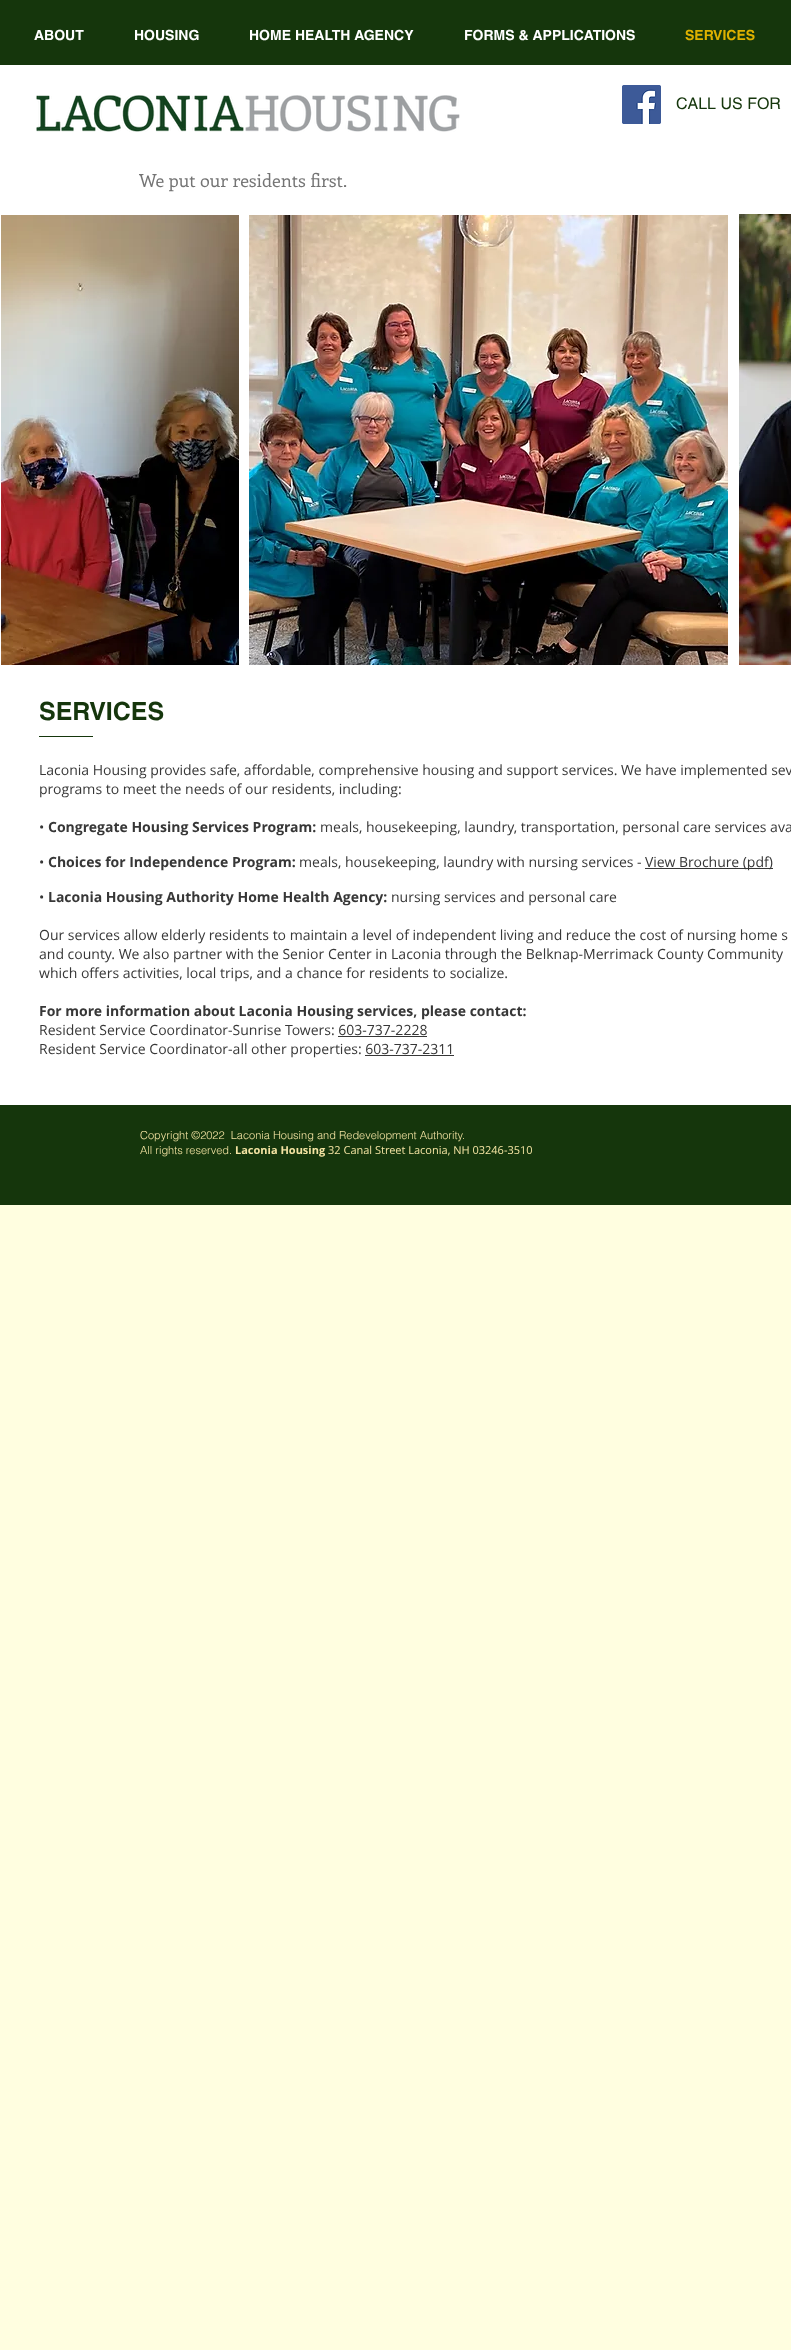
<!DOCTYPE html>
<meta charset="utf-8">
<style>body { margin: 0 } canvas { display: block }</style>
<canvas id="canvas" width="791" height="2350"></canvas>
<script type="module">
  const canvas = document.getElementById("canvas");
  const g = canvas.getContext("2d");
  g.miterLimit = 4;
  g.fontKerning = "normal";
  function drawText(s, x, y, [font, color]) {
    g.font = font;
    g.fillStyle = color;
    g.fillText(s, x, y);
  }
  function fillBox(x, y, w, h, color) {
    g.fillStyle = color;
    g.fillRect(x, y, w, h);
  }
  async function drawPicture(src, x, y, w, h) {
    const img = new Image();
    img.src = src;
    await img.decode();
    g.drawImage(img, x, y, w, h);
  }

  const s1 = ["bold 14px helvetica", "#FFFFFF"];
  const s2 = ["bold 14px helvetica", "#DEB100"];
  const s3 = ["16px helvetica", "#15360C"];
  const s4 = ["18px Enriqueta", "#747474"];
  const s5 = ["bold 25px helvetica", "#15360C"];
  const s6 = ["14px Open Sans", "#373737"];
  const s7 = ["bold 14px Open Sans", "#373737"];
  const s8 = ["300 11px helvetica", "#F4E4A3"];
  const s9 = ["bold 11px Open Sans", "#F4E4A3"];
  const s10 = ["11px Open Sans", "#F4E4A3"];

  fillBox(0, 0, 791, 2350, "#FFFEE0");
  fillBox(0, 0, 791, 65, "#15360C");
  drawText("ABOUT", 34, 40, s1);
  drawText("HOUSING", 134, 40, s1);
  drawText("HOME HEALTH AGENCY", 249, 40, s1);
  drawText("FORMS & APPLICATIONS", 464, 40, s1);
  drawText("SERVICES", 685, 40, s2);
  fillBox(0, 65, 791, 1040, "#FFFFFF");
  await drawPicture("pic1.png", 36, 95, 424, 37);
  await drawPicture("pic2.png", 622, 85, 39, 39);
  drawText("CALL US FOR", 676, 109, s3);
  drawText("We put our residents first.", 139, 187, s4);
  await drawPicture("pic3.png", 1, 215, 238, 450);
  await drawPicture("pic4.png", 249, 215, 479, 450);
  await drawPicture("pic5.png", 739, 214, 52, 451);
  drawText("SERVICES", 39, 720, s5);
  fillBox(39, 736, 54, 1, "#15360C");
  drawText("Laconia Housing provides safe, affordable, comprehensive housing and support services. We have implemented sev", 39, 775, s6);
  drawText("programs to meet the needs of our residents, including:", 39, 794, s6);
  drawText("•", 39, 832, s6);
  drawText("Congregate Housing Services Program:", 48, 832, s7);
  drawText("meals, housekeeping, laundry, transportation, personal care services ava", 320, 832, s6);
  drawText("•", 39, 867, s6);
  drawText("Choices for Independence Program:", 48, 867, s7);
  drawText("meals, housekeeping, laundry with nursing services -", 299, 867, s6);
  fillBox(645, 868, 128, 1, "#373737");
  drawText("View Brochure (pdf)", 645, 867, s6);
  drawText("•", 39, 902, s6);
  drawText("Laconia Housing Authority Home Health Agency:", 48, 902, s7);
  drawText("nursing services and personal care", 391, 902, s6);
  drawText("Our services allow elderly residents to maintain a level of independent living and reduce the cost of nursing home s", 39, 940, s6);
  drawText("and county. We also partner with the Senior Center in Laconia through the Belknap-Merrimack County Community", 39, 959, s6);
  drawText("which offers activities, local trips, and a chance for residents to socialize.", 39, 978, s6);
  drawText("For more information about Laconia Housing services, please contact:", 39, 1016, s7);
  drawText("Resident Service Coordinator-Sunrise Towers: 603-737-2228", 39, 1035, s6);
  fillBox(338, 1036, 89, 1, "#373737");
  drawText("Resident Service Coordinator-all other properties: 603-737-2311", 39, 1054, s6);
  fillBox(365, 1055, 89, 1, "#373737");
  fillBox(0, 1105, 791, 100, "#15360C");
  drawText("Copyright ©2022  Laconia Housing and Redevelopment Authority.", 140, 1139, s8);
  drawText("All rights reserved.", 140, 1154, s8);
  drawText("Laconia Housing", 235, 1154, s9);
  drawText("32 Canal Street Laconia, NH 03246-3510", 328, 1154, s10);
</script>
